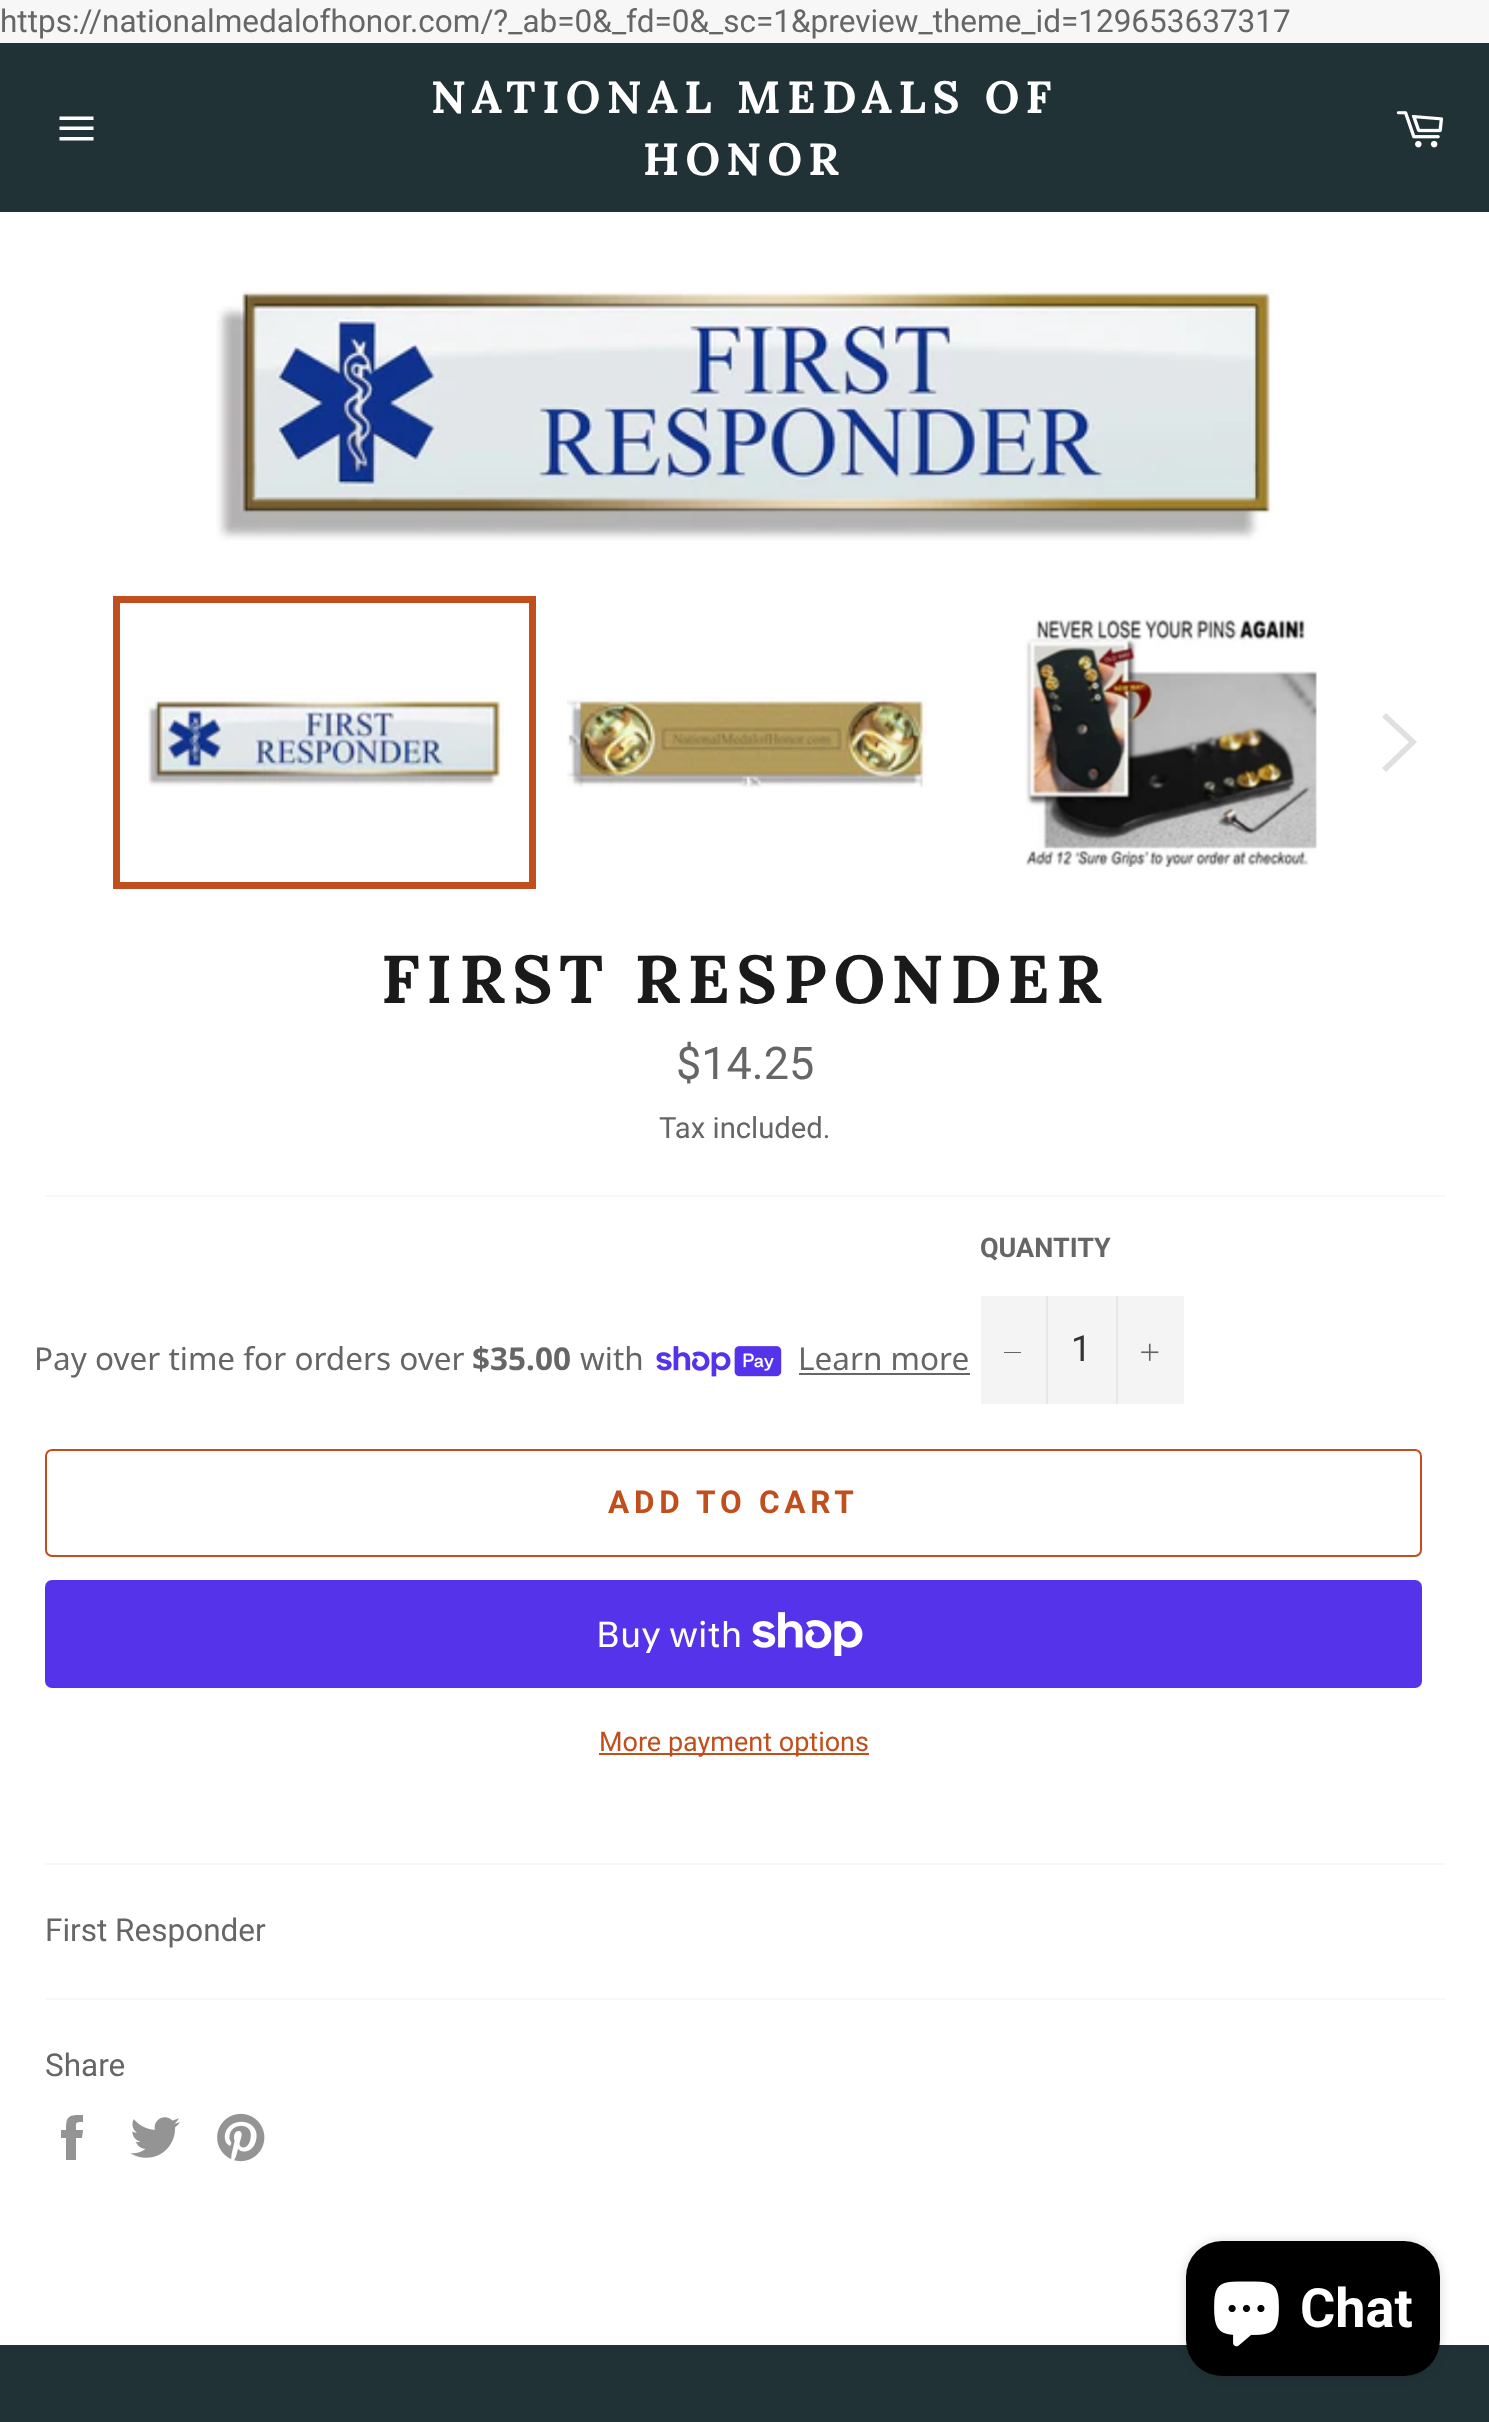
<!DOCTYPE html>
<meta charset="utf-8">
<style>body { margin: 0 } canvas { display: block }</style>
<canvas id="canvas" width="1489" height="2422"></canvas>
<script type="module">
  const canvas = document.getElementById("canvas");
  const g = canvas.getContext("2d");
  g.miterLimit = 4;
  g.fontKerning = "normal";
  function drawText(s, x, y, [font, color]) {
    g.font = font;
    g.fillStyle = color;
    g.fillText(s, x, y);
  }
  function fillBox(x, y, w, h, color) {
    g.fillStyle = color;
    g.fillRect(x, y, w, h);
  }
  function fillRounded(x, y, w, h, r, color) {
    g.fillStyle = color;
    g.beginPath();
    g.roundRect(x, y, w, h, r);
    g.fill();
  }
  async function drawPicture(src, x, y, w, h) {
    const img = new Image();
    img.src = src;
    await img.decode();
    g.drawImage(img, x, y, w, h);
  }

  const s1 = ["31.5px Roboto", "#666666"];
  const s2 = ["bold 45px Lora", "#FFFFFF"];
  const s3 = ["bold 67.5px Lora", "#1A1A1A"];
  const s4 = ["45px Roboto", "#666666"];
  const s5 = ["29.25px Roboto", "#666666"];
  const s6 = ["31.5px Noto Sans", "#666666"];
  const s7 = ["bold 31.5px Noto Sans", "#666666"];
  const s8 = ["bold 27px Roboto", "#666666"];
  const s9 = ["36px Roboto", "#333333"];
  const s10 = ["bold 31.5px Roboto", "#C04F1D"];
  const s11 = ["36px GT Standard", "#FFFFFF"];
  const s12 = ["27px Roboto", "#C04F1D"];
  const s13 = ["bold 54px Roboto", "#FFFFFF"];

  fillBox(0, 0, 1489, 2422, "#F7F7F7");
  drawText("https://nationalmedalofhonor.com/?_ab=0&_fd=0&_sc=1&preview_theme_id=129653637317", 0, 32, s1);
  fillBox(0, 43, 1489, 169, "#213236");
  g.fillStyle = "#FFFFFF";
  g.beginPath();
  g.moveTo(59.5, 126.5);
  g.lineTo(93.5, 126.5);
  g.lineTo(93.5, 130);
  g.lineTo(59.5, 130);
  g.closePath();
  g.moveTo(59.5, 116.5);
  g.lineTo(93.5, 116.5);
  g.lineTo(93.5, 120);
  g.lineTo(59.5, 120);
  g.closePath();
  g.moveTo(59.5, 137);
  g.lineTo(93.5, 137);
  g.lineTo(93.5, 140.5);
  g.lineTo(59.5, 140.5);
  g.closePath();
  g.fill();
  g.letterSpacing = "6.75px";
  drawText("NATIONAL MEDALS OF", 431, 113, s2);
  drawText("HONOR", 643, 175, s2);
  await drawPicture("pic1.png", 1396, 111, 48, 37);
  fillBox(0, 212, 1489, 2133, "#FFFFFF");
  await drawPicture("pic2.png", 216, 290, 1058, 251);
  await drawPicture("pic3.png", 144, 697, 360, 90);
  g.strokeStyle = "#C04F1D";
  g.lineWidth = 7;
  g.strokeRect(116.5, 599.5, 416, 286);
  await drawPicture("pic4.png", 567, 697, 360, 91);
  await drawPicture("pic5.png", 1024, 619, 293, 248);
  g.fillStyle = "#E0E0E0";
  g.beginPath();
  g.moveTo(1382, 717);
  g.lineTo(1386, 713);
  g.lineTo(1417, 742);
  g.lineTo(1386, 772);
  g.lineTo(1382, 768);
  g.lineTo(1409, 742);
  g.closePath();
  g.fill();
  drawText("FIRST RESPONDER", 381, 1003, s3);
  g.letterSpacing = "0px";
  drawText("$14.25", 676, 1079, s4);
  drawText("Tax included.", 659, 1138, s5);
  fillBox(45, 1195, 1400, 2, "#F7F7F7");
  drawText("Pay over time for orders over", 34, 1370, s6);
  drawText("$35.00", 472, 1370, s7);
  drawText("with", 580, 1370, s6);
  await drawPicture("pic6.png", 656, 1346, 126, 31);
  drawText("Learn more", 798, 1370, s6);
  fillBox(799, 1373, 171, 2, "#666666");
  drawText("QUANTITY", 980, 1257, s8);
  fillBox(981, 1296, 203, 108, "#F4F4F4");
  fillBox(1046, 1296, 2, 108, "#E7E7E7");
  fillBox(1004, 1352, 17, 1, "#666666");
  drawText("1", 1071, 1361, s9);
  fillBox(1116, 1296, 2, 108, "#E7E7E7");
  await drawPicture("pic7.png", 1141, 1343, 18, 18);
  g.beginPath();
  g.roundRect(46, 1450, 1375, 106, 6);
  g.lineWidth = 2;
  g.stroke();
  g.letterSpacing = "4.75px";
  drawText("ADD TO CART", 608, 1513, s10);
  fillRounded(45, 1580, 1377, 108, 7, "#5433EB");
  g.letterSpacing = "0px";
  drawText("Buy with", 596, 1647, s11);
  await drawPicture("pic8.png", 752, 1612, 111, 44);
  fillBox(599, 1753, 270, 2, "#C04F1D");
  drawText("More payment options", 599, 1751, s12);
  fillBox(45, 1863, 1400, 2, "#F7F7F7");
  drawText("First Responder", 45, 1941, s1);
  fillBox(45, 1998, 1400, 2, "#F7F7F7");
  drawText("Share", 45, 2076, s1);
  g.fillStyle = "#949494";
  g.beginPath();
  g.moveTo(76, 2130);
  g.bezierCurveTo(76, 2122, 75, 2122, 83, 2122);
  g.lineTo(83, 2115);
  g.bezierCurveTo(69, 2115, 66, 2115, 66, 2130);
  g.lineTo(61, 2130);
  g.lineTo(61, 2138);
  g.lineTo(66, 2138);
  g.lineTo(66, 2160);
  g.lineTo(76, 2160);
  g.lineTo(76, 2138);
  g.lineTo(82, 2138);
  g.lineTo(83, 2130);
  g.closePath();
  g.fill();
  await drawPicture("pic9.png", 130, 2117, 50, 41);
  await drawPicture("pic10.png", 217, 2113, 48, 49);
  fillBox(0, 2345, 1489, 77, "#213236");
  g.fillStyle = "rgba(0, 0, 0, 0.15)";
  g.filter = "blur(5.5px)";
  g.beginPath();
  g.roundRect(1186, 2241, 254, 135, 36);
  g.fill();
  g.filter = "none";
  fillRounded(1186, 2241, 254, 135, 36, "#000000");
  await drawPicture("pic11.png", 1214, 2281, 65, 66);
  drawText("Chat", 1300, 2327, s13);
</script>
